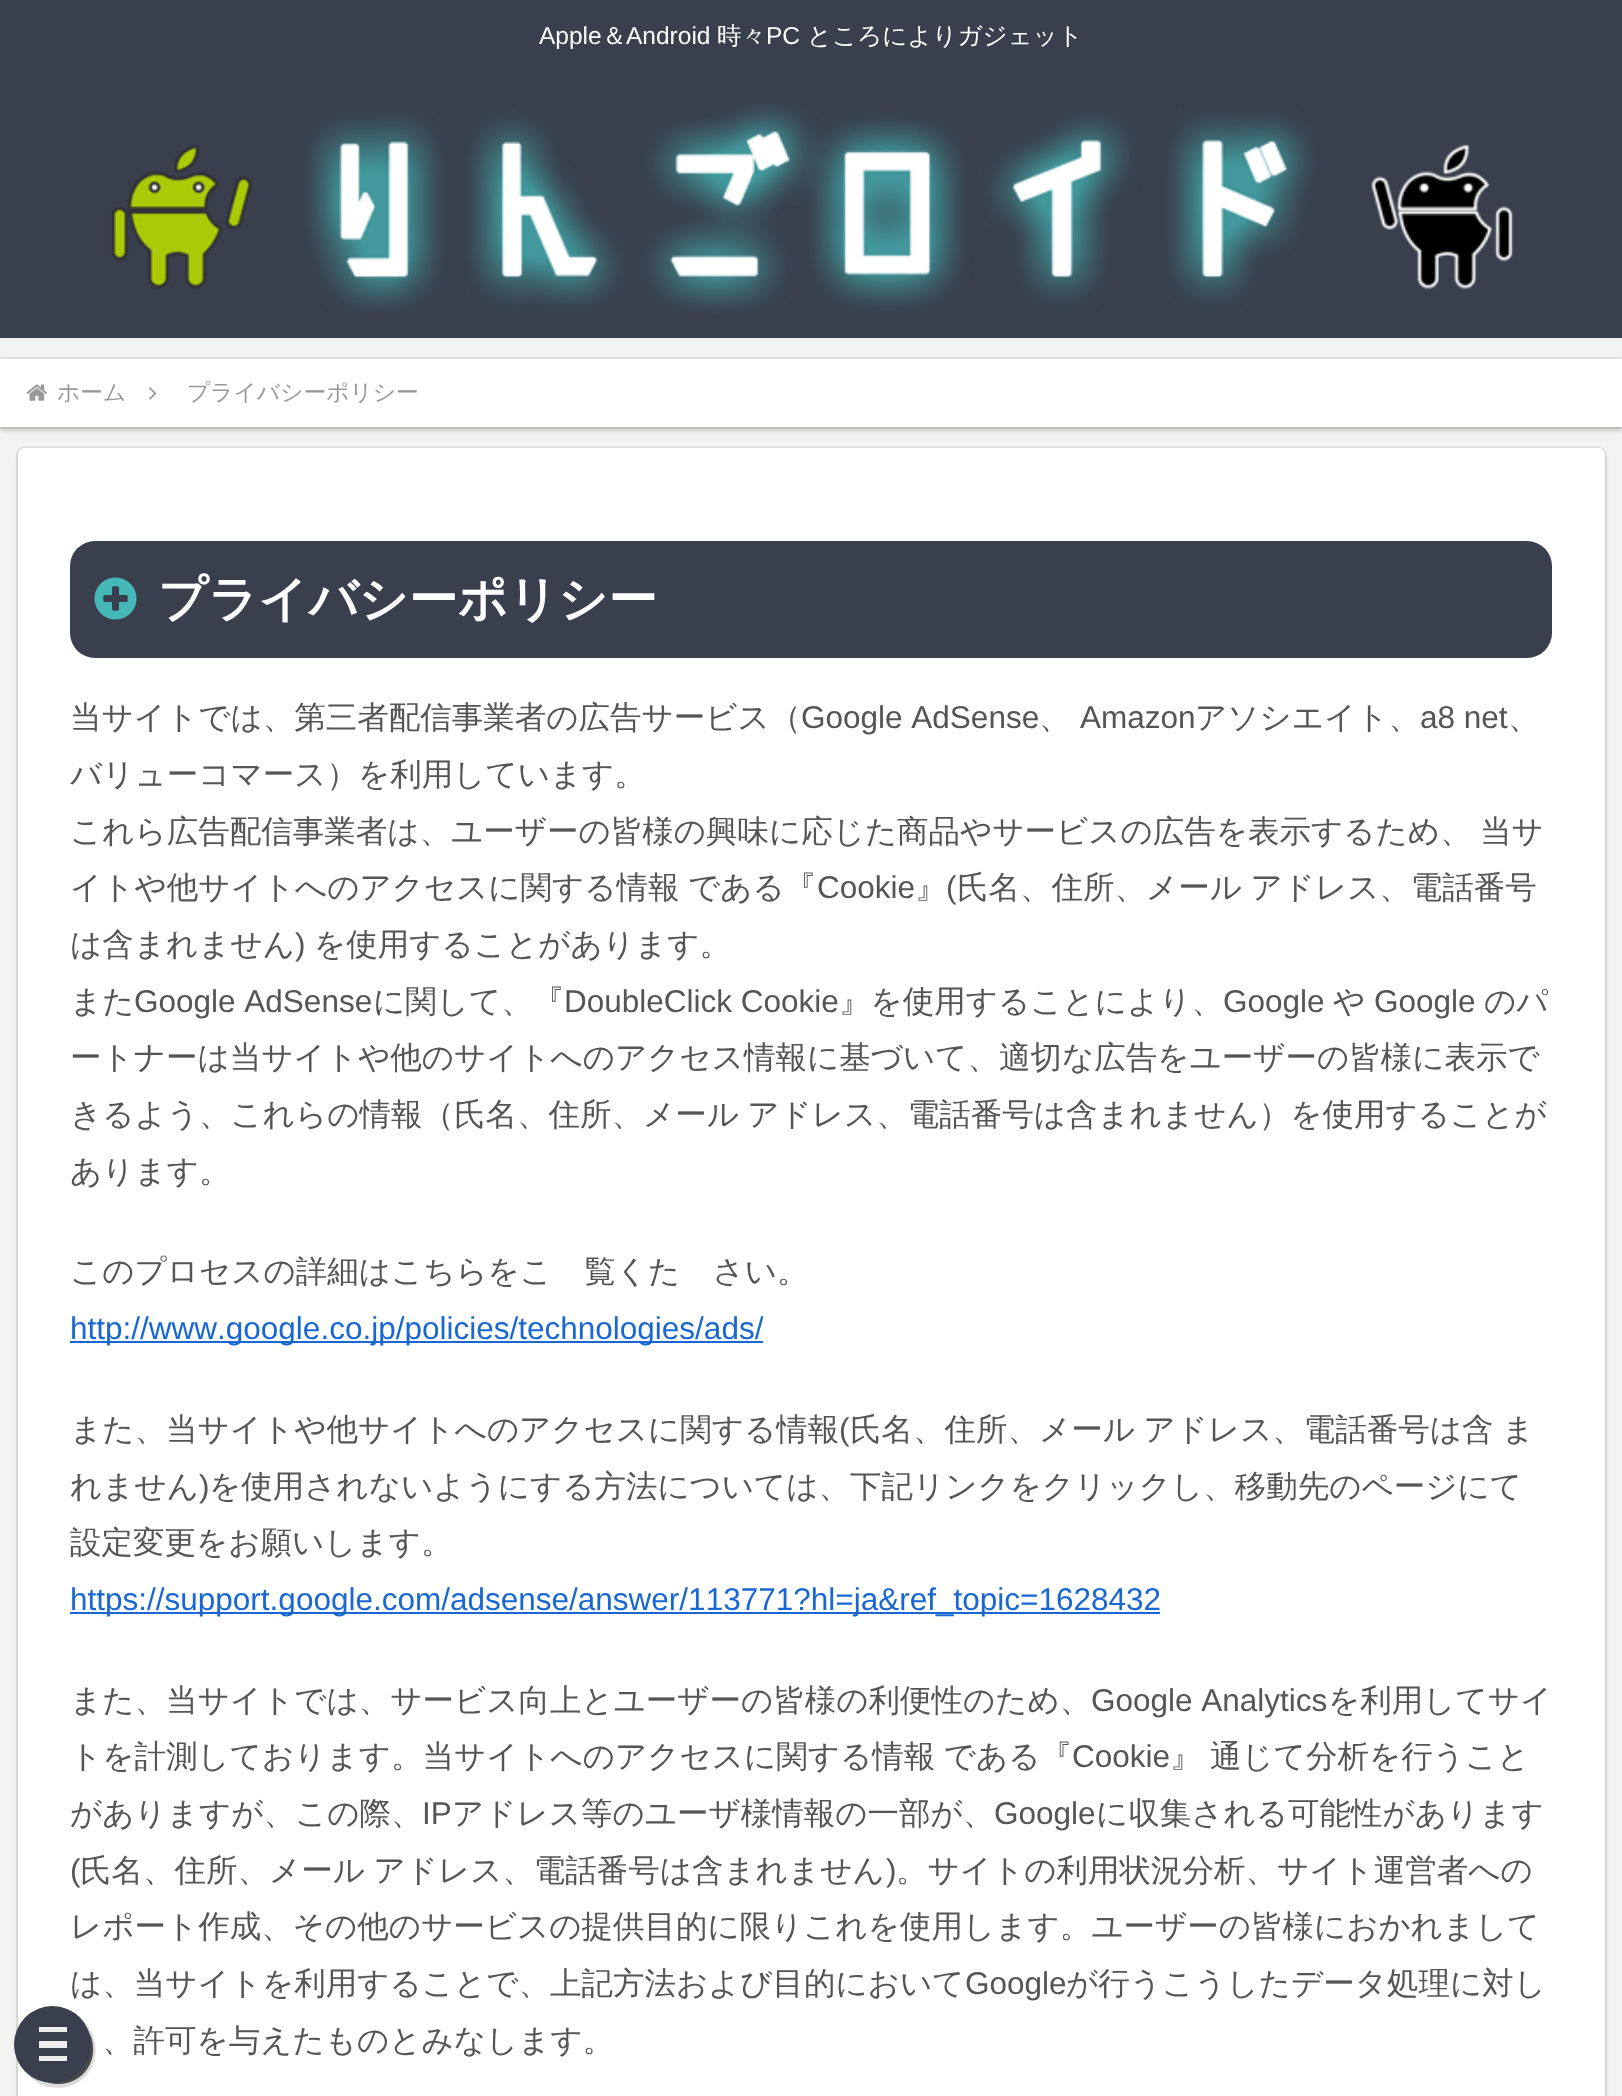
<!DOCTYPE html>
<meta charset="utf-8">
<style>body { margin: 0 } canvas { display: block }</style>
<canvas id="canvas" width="1622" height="2096"></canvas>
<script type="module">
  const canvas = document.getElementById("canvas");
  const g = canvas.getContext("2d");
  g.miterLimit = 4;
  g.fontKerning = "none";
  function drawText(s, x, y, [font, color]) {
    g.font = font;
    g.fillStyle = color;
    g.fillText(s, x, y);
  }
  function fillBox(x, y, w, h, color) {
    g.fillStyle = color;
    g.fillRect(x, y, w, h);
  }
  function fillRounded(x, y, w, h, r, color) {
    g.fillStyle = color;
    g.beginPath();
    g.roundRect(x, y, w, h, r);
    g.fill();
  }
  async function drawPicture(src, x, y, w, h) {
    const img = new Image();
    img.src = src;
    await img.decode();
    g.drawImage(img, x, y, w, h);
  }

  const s1 = ["24.5px Liberation Sans", "#FFFFFF"];
  const s2 = ["500 24.5px WenQuanYi Zen Hei", "#FFFFFF"];
  const s3 = ["500 22.75px WenQuanYi Zen Hei", "#999999"];
  const s4 = ["bold 49px WenQuanYi Zen Hei", "#FFFFFF"];
  const s5 = ["500 31.5px WenQuanYi Zen Hei", "#555555"];
  const s6 = ["31.5px Liberation Sans", "#555555"];
  const s7 = ["31.5px Liberation Sans", "#1967D2"];

  fillBox(0, 0, 1622, 2096, "#F3F3F2");
  fillBox(0, 0, 1622, 338, "#393F4C");
  drawText("Apple", 539, 44, s1);
  drawText("＆", 602, 44, s2);
  drawText("Android", 626, 44, s1);
  drawText("時々", 717, 44, s2);
  drawText("PC", 766, 44, s1);
  drawText("ところによりガジェット", 807, 44, s2);
  await drawPicture("pic1.png", 111, 99, 1402, 215);
  g.strokeStyle = "#E0E0DF";
  g.lineWidth = 2;
  g.strokeRect(-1, 358, 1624, 70);
  g.fillStyle = "rgba(0, 0, 0, 0.16)";
  g.filter = "blur(2px)";
  g.beginPath();
  g.rect(0, 362, 1622, 69);
  g.fill();
  g.filter = "none";
  fillBox(0, 359, 1622, 68, "#FFFFFF");
  await drawPicture("pic2.png", 26, 384, 21, 17);
  drawText("ホーム", 57, 400, s3);
  await drawPicture("pic3.png", 149, 387, 8, 13);
  drawText("プライバシーポリシー", 187, 400, s3);
  g.beginPath();
  g.roundRect(17, 447, 1589, 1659, 8);
  g.stroke();
  g.fillStyle = "rgba(0, 0, 0, 0.16)";
  g.filter = "blur(2px)";
  g.beginPath();
  g.roundRect(18, 452, 1587, 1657, 7);
  g.fill();
  g.filter = "none";
  fillRounded(18, 448, 1587, 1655, 7, "#FFFFFF");
  g.fillStyle = "rgba(0, 0, 0, 0.14)";
  g.beginPath();
  g.moveTo(32, 2072);
  g.bezierCurveTo(45, 2087, 69, 2088, 83, 2074);
  g.bezierCurveTo(98, 2059, 96, 2033, 79, 2021);
  g.bezierCurveTo(106, 2052, 65, 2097, 32, 2072);
  g.closePath();
  g.fill();
  g.beginPath();
  g.moveTo(32, 2072);
  g.bezierCurveTo(45, 2087, 69, 2088, 83, 2074);
  g.bezierCurveTo(98, 2059, 96, 2033, 79, 2021);
  g.bezierCurveTo(106, 2052, 65, 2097, 32, 2072);
  g.closePath();
  g.fill();
  g.beginPath();
  g.moveTo(32, 2072);
  g.bezierCurveTo(45, 2087, 69, 2088, 83, 2074);
  g.bezierCurveTo(98, 2059, 96, 2033, 79, 2021);
  g.bezierCurveTo(106, 2052, 65, 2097, 32, 2072);
  g.closePath();
  g.fill();
  g.beginPath();
  g.moveTo(32, 2072);
  g.bezierCurveTo(45, 2087, 69, 2088, 83, 2074);
  g.bezierCurveTo(98, 2059, 96, 2033, 79, 2021);
  g.bezierCurveTo(106, 2052, 65, 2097, 32, 2072);
  g.closePath();
  g.fill();
  g.beginPath();
  g.moveTo(32, 2072);
  g.bezierCurveTo(45, 2087, 69, 2088, 83, 2074);
  g.bezierCurveTo(98, 2059, 96, 2033, 79, 2021);
  g.bezierCurveTo(106, 2052, 65, 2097, 32, 2072);
  g.closePath();
  g.fill();
  g.beginPath();
  g.moveTo(32, 2072);
  g.bezierCurveTo(45, 2087, 69, 2088, 83, 2074);
  g.bezierCurveTo(98, 2059, 96, 2033, 79, 2021);
  g.bezierCurveTo(106, 2052, 65, 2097, 32, 2072);
  g.closePath();
  g.fill();
  g.beginPath();
  g.moveTo(32, 2072);
  g.bezierCurveTo(45, 2087, 69, 2088, 83, 2074);
  g.bezierCurveTo(98, 2059, 96, 2033, 79, 2021);
  g.bezierCurveTo(106, 2052, 65, 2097, 32, 2072);
  g.closePath();
  g.fill();
  g.beginPath();
  g.moveTo(27, 2073);
  g.bezierCurveTo(40, 2091, 68, 2093, 85, 2077);
  g.bezierCurveTo(100, 2061, 99, 2035, 83, 2021);
  g.bezierCurveTo(95, 2036, 93, 2058, 80, 2071);
  g.bezierCurveTo(65, 2086, 42, 2086, 27, 2073);
  g.closePath();
  g.fill();
  g.fillStyle = "#393F4C";
  g.beginPath();
  g.arc(52.5, 2044.5, 38.5, 0, Math.PI * 2);
  g.fill();
  fillBox(39, 2027, 28, 5, "#EEEEEE");
  fillBox(39, 2041, 28, 7, "#EEEEEE");
  fillBox(39, 2056, 28, 5, "#EEEEEE");
  fillRounded(70, 541, 1482, 117, 25, "#393F4C");
  await drawPicture("pic4.png", 94, 577, 43, 43);
  drawText("プライバシーポリシー", 158, 616, s4);
  drawText("当サイトでは、第三者配信事業者の広告サービス（", 70, 728, s5);
  drawText("Google AdSense", 801, 728, s6);
  drawText("、", 1039, 728, s5);
  drawText("Amazon", 1080, 728, s6);
  drawText("アソシエイト、", 1195, 728, s5);
  drawText("a8 net", 1420, 728, s6);
  drawText("、", 1508, 728, s5);
  drawText("バリューコマース）を利用しています。", 70, 785, s5);
  g.wordSpacing = "-1px";
  drawText("これら広告配信事業者は、ユーザーの皆様の興味に応じた商品やサービスの広告を表示するため、 当サ", 70, 842, s5);
  drawText("イトや他サイトへのアクセスに関する情報 である『", 70, 898, s5);
  g.wordSpacing = "0px";
  drawText("Cookie", 817, 898, s6);
  drawText("』", 915, 898, s5);
  drawText("(", 946, 898, s6);
  g.wordSpacing = "-1px";
  drawText("氏名、住所、メール アドレス、電話番号", 957, 898, s5);
  g.wordSpacing = "0px";
  drawText("は含まれません", 70, 955, s5);
  drawText(")", 295, 955, s6);
  drawText("を使用することがあります。", 314, 955, s5);
  drawText("また", 70, 1012, s5);
  drawText("Google AdSense", 134, 1012, s6);
  drawText("に関して、『", 373, 1012, s5);
  drawText("DoubleClick Cookie", 564, 1012, s6);
  drawText("』を使用することにより、", 839, 1012, s5);
  drawText("Google", 1223, 1012, s6);
  drawText("や", 1333, 1012, s5);
  drawText("Google", 1374, 1012, s6);
  drawText("のパ", 1484, 1012, s5);
  drawText("ートナーは当サイトや他のサイトへのアクセス情報に基づいて、適切な広告をユーザーの皆様に表示で", 70, 1068, s5);
  g.wordSpacing = "-1px";
  drawText("きるよう、これらの情報（氏名、住所、メール アドレス、電話番号は含まれません）を使用することが", 70, 1125, s5);
  g.wordSpacing = "0px";
  drawText("あります。", 70, 1182, s5);
  drawText("このプロセスの詳細はこちらをご覧ください。", 70, 1282, s5);
  fillBox(70, 1341, 693, 2, "#1967D2");
  drawText("http://www.google.co.jp/policies/technologies/ads/", 70, 1339, s7);
  drawText("また、当サイトや他サイトへのアクセスに関する情報", 70, 1440, s5);
  drawText("(", 839, 1440, s6);
  g.wordSpacing = "-1px";
  drawText("氏名、住所、メール アドレス、電話番号は含 ま", 850, 1440, s5);
  g.wordSpacing = "0px";
  drawText("れません", 70, 1497, s5);
  drawText(")", 199, 1497, s6);
  drawText("を使用されないようにする方法については、下記リンクをクリックし、移動先のページにて", 209, 1497, s5);
  drawText("設定変更をお願いします。", 70, 1553, s5);
  fillBox(70, 1612, 1090, 2, "#1967D2");
  drawText("https://support.google.com/adsense/answer/113771?hl=ja&ref_topic=1628432", 70, 1610, s7);
  drawText("また、当サイトでは、サービス向上とユーザーの皆様の利便性のため、", 70, 1711, s5);
  drawText("Google Analytics", 1091, 1711, s6);
  drawText("を利用してサイ", 1328, 1711, s5);
  g.wordSpacing = "-1px";
  drawText("トを計測しております。当サイトへのアクセスに関する情報 である『", 70, 1767, s5);
  g.wordSpacing = "0px";
  drawText("Cookie", 1072, 1767, s6);
  g.wordSpacing = "-1px";
  drawText("』 通じて分析を行うこと", 1170, 1767, s5);
  g.wordSpacing = "0px";
  drawText("がありますが、この際、", 70, 1824, s5);
  drawText("IP", 422, 1824, s6);
  drawText("アドレス等のユーザ様情報の一部が、", 452, 1824, s5);
  drawText("Google", 994, 1824, s6);
  drawText("に収集される可能性があります", 1096, 1824, s5);
  drawText("(", 70, 1881, s6);
  g.wordSpacing = "-1px";
  drawText("氏名、住所、メール アドレス、電話番号は含まれません", 80, 1881, s5);
  g.wordSpacing = "0px";
  drawText(")", 886, 1881, s6);
  drawText("。サイトの利用状況分析、サイト運営者への", 896, 1881, s5);
  drawText("レポート作成、その他のサービスの提供目的に限りこれを使用します。ユーザーの皆様におかれまして", 70, 1937, s5);
  drawText("は、当サイトを利用することで、上記方法および目的において", 70, 1994, s5);
  drawText("Google", 965, 1994, s6);
  drawText("が行うこうしたデータ処理に対し", 1066, 1994, s5);
  drawText("、許可を与えたものとみなします。", 102, 2051, s5);
</script>
